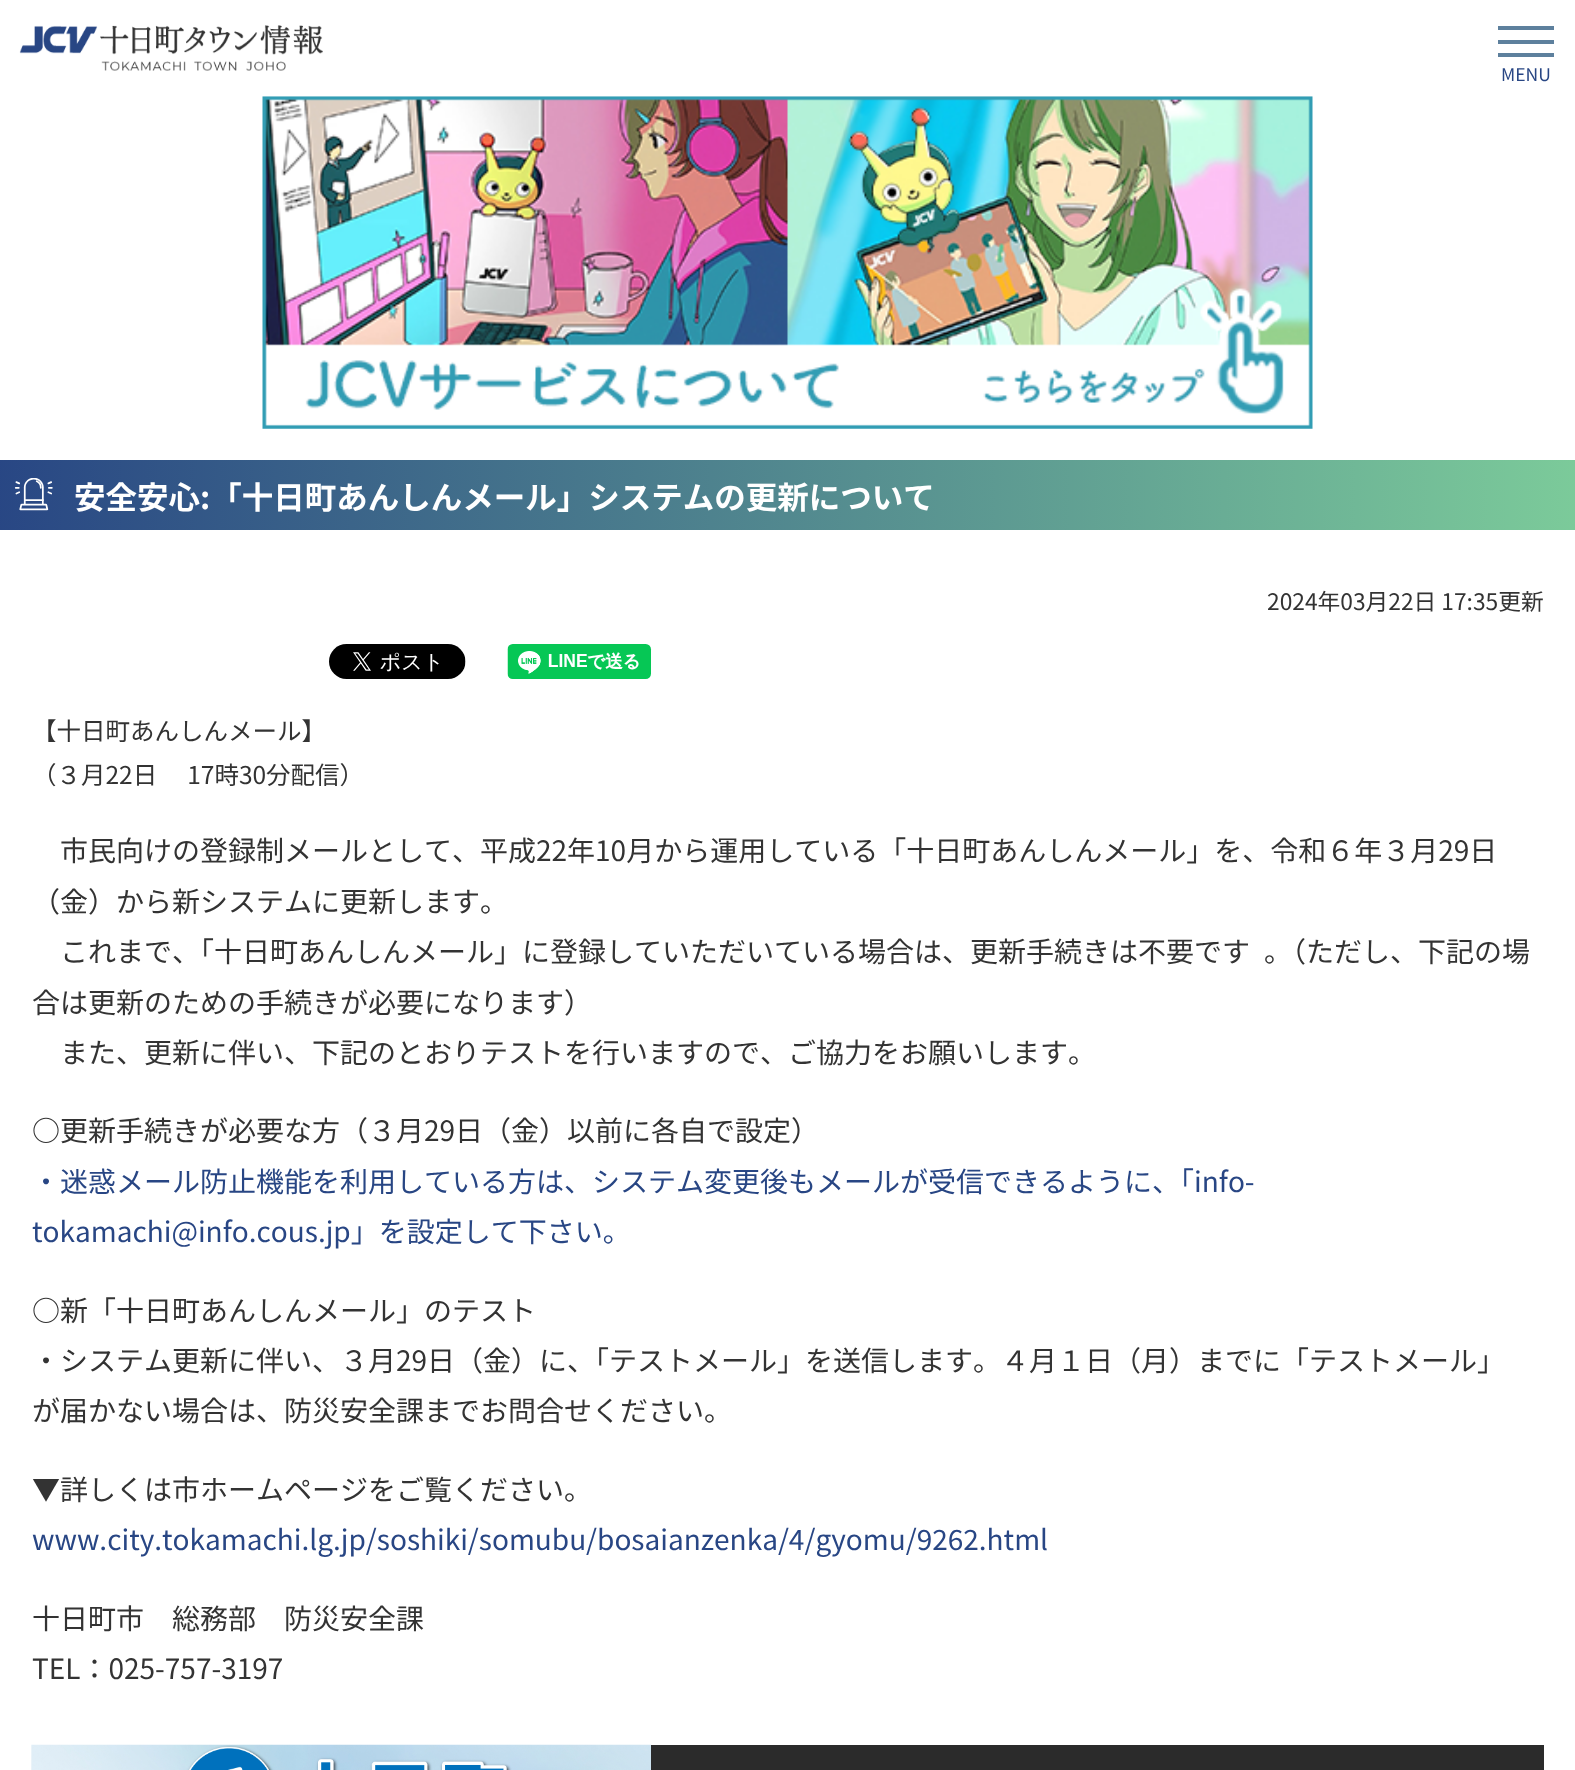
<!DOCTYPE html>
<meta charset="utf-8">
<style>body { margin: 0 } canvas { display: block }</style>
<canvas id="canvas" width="1575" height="1770"></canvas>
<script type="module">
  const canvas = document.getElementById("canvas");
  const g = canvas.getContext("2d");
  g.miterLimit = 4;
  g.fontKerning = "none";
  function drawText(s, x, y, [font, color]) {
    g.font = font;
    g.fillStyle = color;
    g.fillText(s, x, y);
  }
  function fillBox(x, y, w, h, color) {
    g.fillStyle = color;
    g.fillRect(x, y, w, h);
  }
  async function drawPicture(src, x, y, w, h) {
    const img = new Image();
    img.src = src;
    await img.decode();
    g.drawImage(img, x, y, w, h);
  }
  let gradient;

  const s1 = ["17.5px Noto Sans JP", "#284684"];
  const s2 = ["bold 31.5px Noto Sans JP", "#FFFFFF"];
  const s3 = ["22.75px Noto Sans JP", "#333333"];
  const s4 = ["24.5px Noto Sans JP", "#333333"];
  const s5 = ["28px Noto Sans JP", "#333333"];
  const s6 = ["28px Noto Sans JP", "#284684"];

  fillBox(0, 0, 1575, 1770, "#FFFFFF");
  await drawPicture("pic1.png", 19, 25, 304, 46);
  fillBox(1498, 40, 56, 4, "#5D809D");
  fillBox(1498, 26, 56, 4, "#5D809D");
  fillBox(1498, 53, 56, 4, "#5D809D");
  drawText("MENU", 1501, 81, s1);
  await drawPicture("pic2.png", 262, 96, 1051, 333);
  gradient = g.createLinearGradient(-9, 495, 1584, 495);
  gradient.addColorStop(0, "#284684");
  gradient.addColorStop(1, "#7CCB9A");
  g.fillStyle = gradient;
  g.fillRect(0, 460, 1575, 70);
  await drawPicture("pic3.png", 14, 478, 39, 33);
  drawText("安全安心:「十日町あんしんメール」システムの更新について", 74, 509, s2);
  drawText("2024年03月22日 17:35更新", 1267, 610, s3);
  await drawPicture("pic4.png", 329, 644, 137, 35);
  await drawPicture("pic5.png", 507, 644, 145, 35);
  drawText("【十日町あんしんメール】", 32, 740, s4);
  drawText("（３月22日　 17時30分配信）", 32, 784, s4);
  drawText("市民向けの登録制メールとして、平成22年10月から運用している「十日町あんしんメール」を、令和６年３月29日", 60, 861, s5);
  drawText("（金）から新システムに更新します。", 32, 912, s5);
  drawText("これまで、「十日町あんしんメール」に登録していただいている場合は、更新手続きは不要です", 60, 962, s5);
  drawText("。（ただし、下記の場", 1264, 962, s5);
  drawText("合は更新のための手続きが必要になります）", 32, 1013, s5);
  drawText("また、更新に伴い、下記のとおりテストを行いますので、ご協力をお願いします。", 60, 1063, s5);
  drawText("○更新手続きが必要な方（３月29日（金）以前に各自で設定）", 32, 1141, s5);
  drawText("・迷惑メール防止機能を利用している方は、システム変更後もメールが受信できるように、「info-", 32, 1192, s6);
  drawText("tokamachi@info.cous.jp」を設定して下さい。", 32, 1242, s6);
  drawText("○新「十日町あんしんメール」のテスト", 32, 1321, s5);
  drawText("・システム更新に伴い、３月29日（金）に、「テストメール」を送信します。４月１日（月）までに「テストメール」", 32, 1371, s5);
  drawText("が届かない場合は、防災安全課までお問合せください。", 32, 1421, s5);
  drawText("▼詳しくは市ホームページをご覧ください。", 32, 1500, s5);
  drawText("www.city.tokamachi.lg.jp/soshiki/somubu/bosaianzenka/4/gyomu/9262.html", 32, 1550, s6);
  drawText("十日町市　総務部　防災安全課", 32, 1629, s5);
  drawText("TEL：025-757-3197", 32, 1679, s5);
  fillBox(651, 1745, 893, 25, "#2B2B2B");
  await drawPicture("pic6.png", 31, 1744, 620, 26);
</script>
